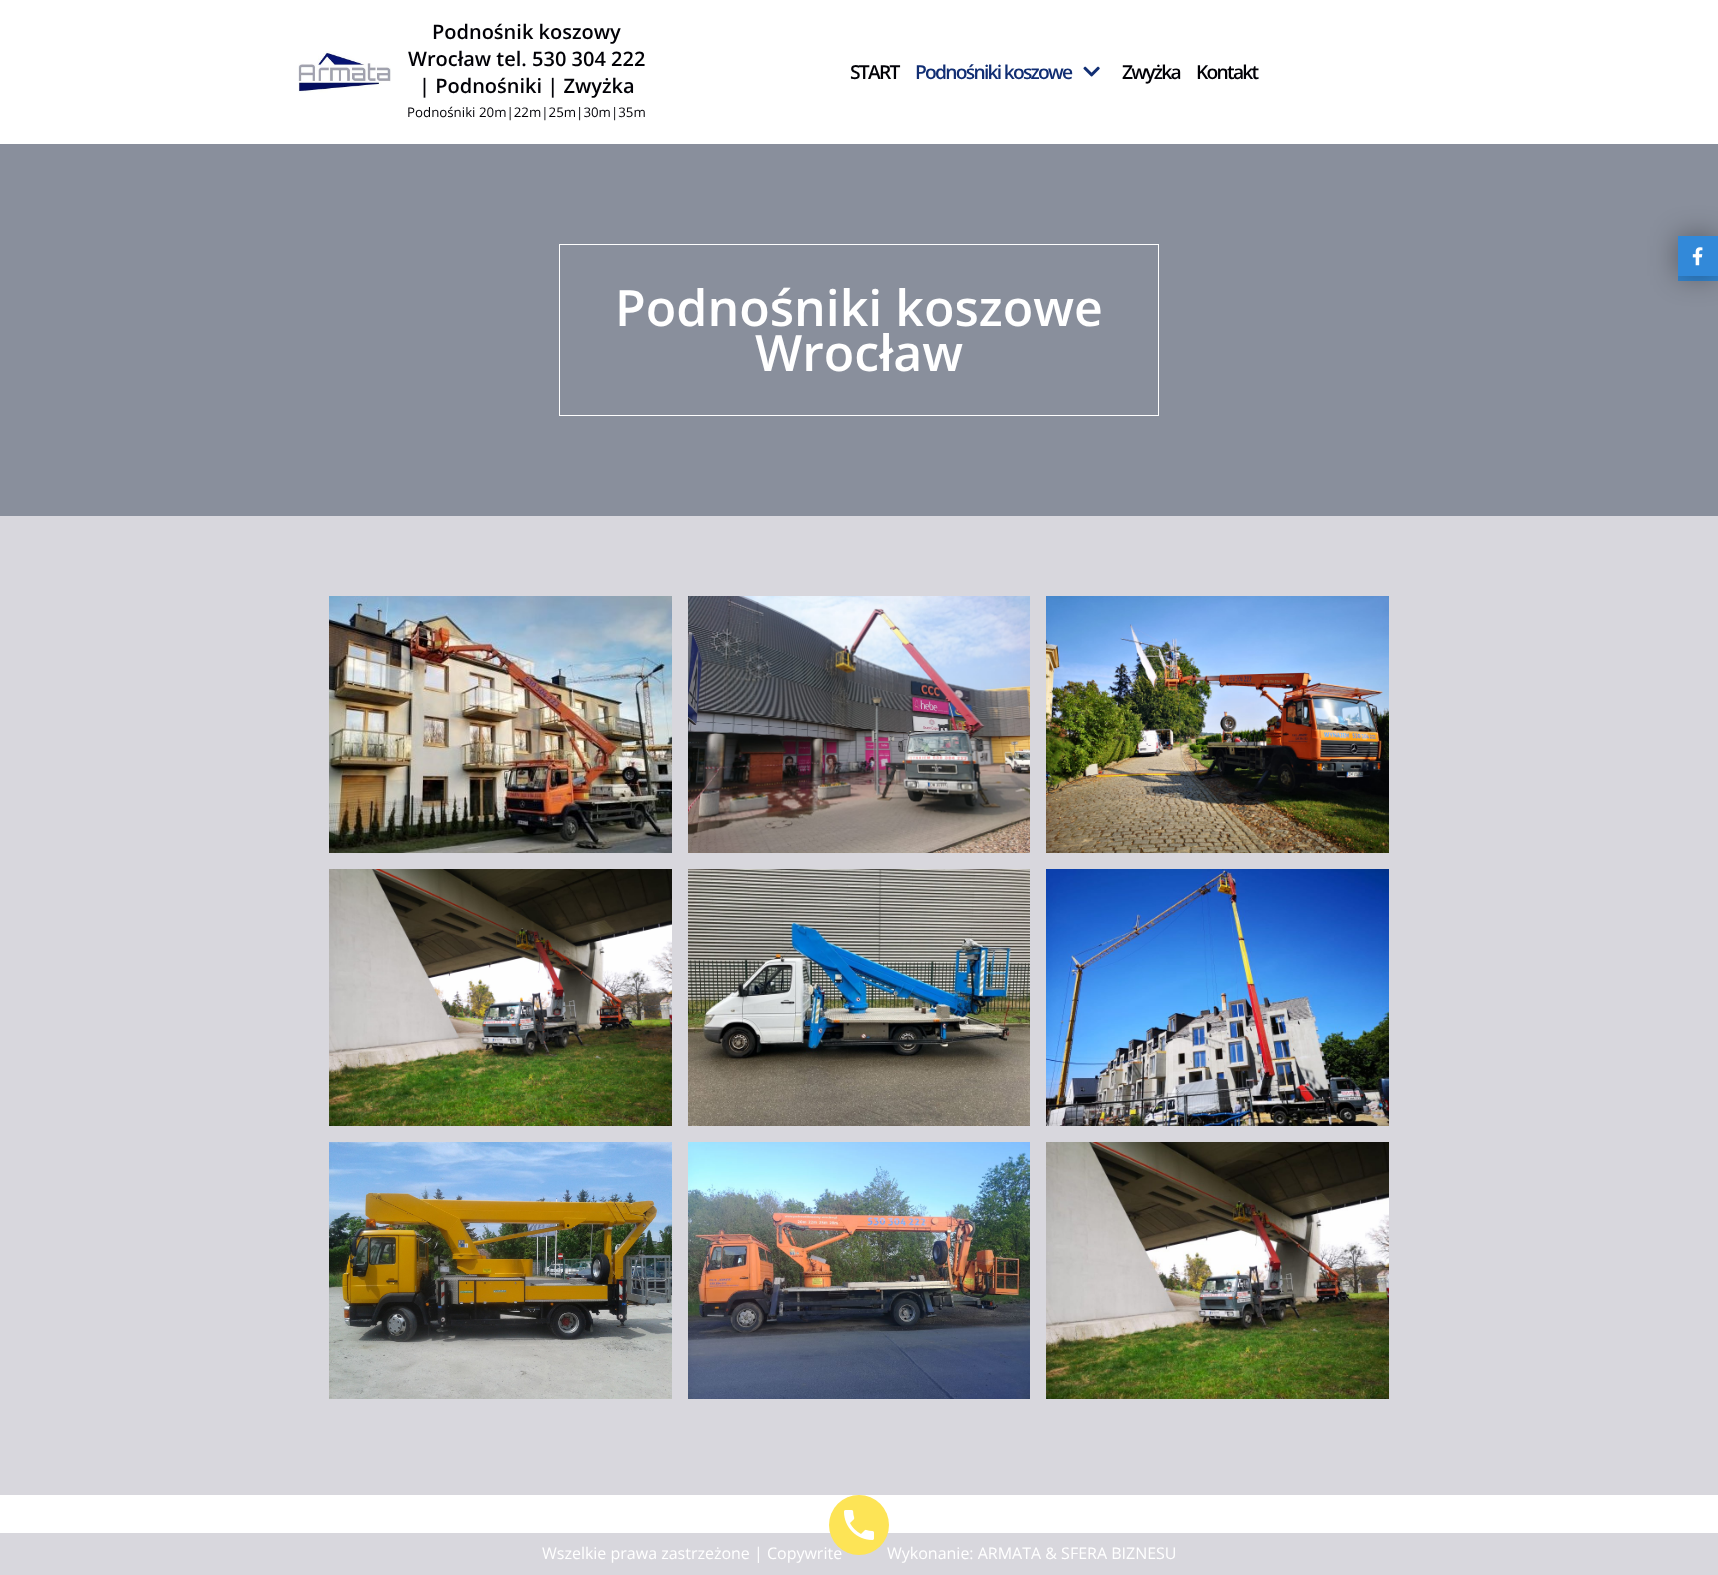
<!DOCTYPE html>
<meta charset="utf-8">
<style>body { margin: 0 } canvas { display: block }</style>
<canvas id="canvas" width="1718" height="1575"></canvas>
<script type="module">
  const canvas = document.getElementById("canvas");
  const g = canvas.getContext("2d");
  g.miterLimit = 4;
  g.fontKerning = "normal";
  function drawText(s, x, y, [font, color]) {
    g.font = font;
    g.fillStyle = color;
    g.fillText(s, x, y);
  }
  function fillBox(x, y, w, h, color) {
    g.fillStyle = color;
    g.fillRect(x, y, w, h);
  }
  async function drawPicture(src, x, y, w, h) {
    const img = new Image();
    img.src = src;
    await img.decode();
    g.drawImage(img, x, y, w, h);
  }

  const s1 = ["600 20px Open Sans", "#010106"];
  const s2 = ["13.3px Open Sans", "#010106"];
  const s3 = ["600 19.25px Open Sans", "#010106"];
  const s4 = ["600 19.25px Open Sans", "#112E73"];
  const s5 = ["600 50px Open Sans", "#FFFFFF"];
  const s6 = ["16px Open Sans", "#FFFFFF"];

  fillBox(0, 0, 1718, 1575, "#FFFFFF");
  fillBox(0, 144, 1718, 372, "#898F9C");
  await drawPicture("pic1.png", 298, 51, 93, 42);
  drawText("Podnośnik koszowy", 432, 39, s1);
  drawText("Wrocław tel. 530 304 222", 408, 66, s1);
  drawText("| Podnośniki | Zwyżka", 419, 93, s1);
  drawText("Podnośniki 20m|22m|25m|30m|35m", 407, 117, s2);
  g.letterSpacing = "-1.75px";
  drawText("START", 850, 79, s3);
  drawText("Podnośniki koszowe", 915, 79, s4);
  await drawPicture("pic2.png", 1083, 66, 17, 11);
  drawText("Zwyżka", 1122, 79, s3);
  drawText("Kontakt", 1196, 79, s3);
  g.strokeStyle = "#FFFFFF";
  g.strokeRect(559.5, 244.5, 599, 171);
  g.letterSpacing = "0px";
  drawText("Podnośniki koszowe", 615, 326, s5);
  drawText("Wrocław", 755, 371, s5);
  fillBox(0, 516, 1718, 979, "#D8D7DD");
  await drawPicture("pic3.png", 329, 596, 343, 257);
  await drawPicture("pic4.png", 688, 596, 342, 257);
  await drawPicture("pic5.png", 1046, 596, 343, 257);
  await drawPicture("pic6.png", 329, 869, 343, 257);
  await drawPicture("pic7.png", 688, 869, 342, 257);
  await drawPicture("pic8.png", 1046, 869, 343, 257);
  await drawPicture("pic9.png", 329, 1142, 343, 257);
  await drawPicture("pic10.png", 688, 1142, 342, 257);
  await drawPicture("pic11.png", 1046, 1142, 343, 257);
  fillBox(0, 1533, 1718, 42, "#D8D7DD");
  drawText("Wszelkie prawa zastrzeżone | Copywrite", 542, 1559, s6);
  drawText("Wykonanie: ARMATA & SFERA BIZNESU", 887, 1559, s6);
  fillBox(1678, 276, 40, 5, "#3487D2");
  g.fillStyle = "rgba(0, 0, 0, 0.38)";
  g.filter = "blur(14px)";
  g.beginPath();
  g.rect(1678, 236, 40, 40);
  g.fill();
  g.filter = "none";
  fillBox(1678, 236, 40, 40, "#3289D9");
  await drawPicture("pic12.png", 1692, 247, 11, 19);
  g.fillStyle = "#FDE456";
  g.beginPath();
  g.arc(859, 1525, 30, 0, Math.PI * 2);
  g.fill();
  await drawPicture("pic13.png", 844, 1510, 30, 30);
</script>
